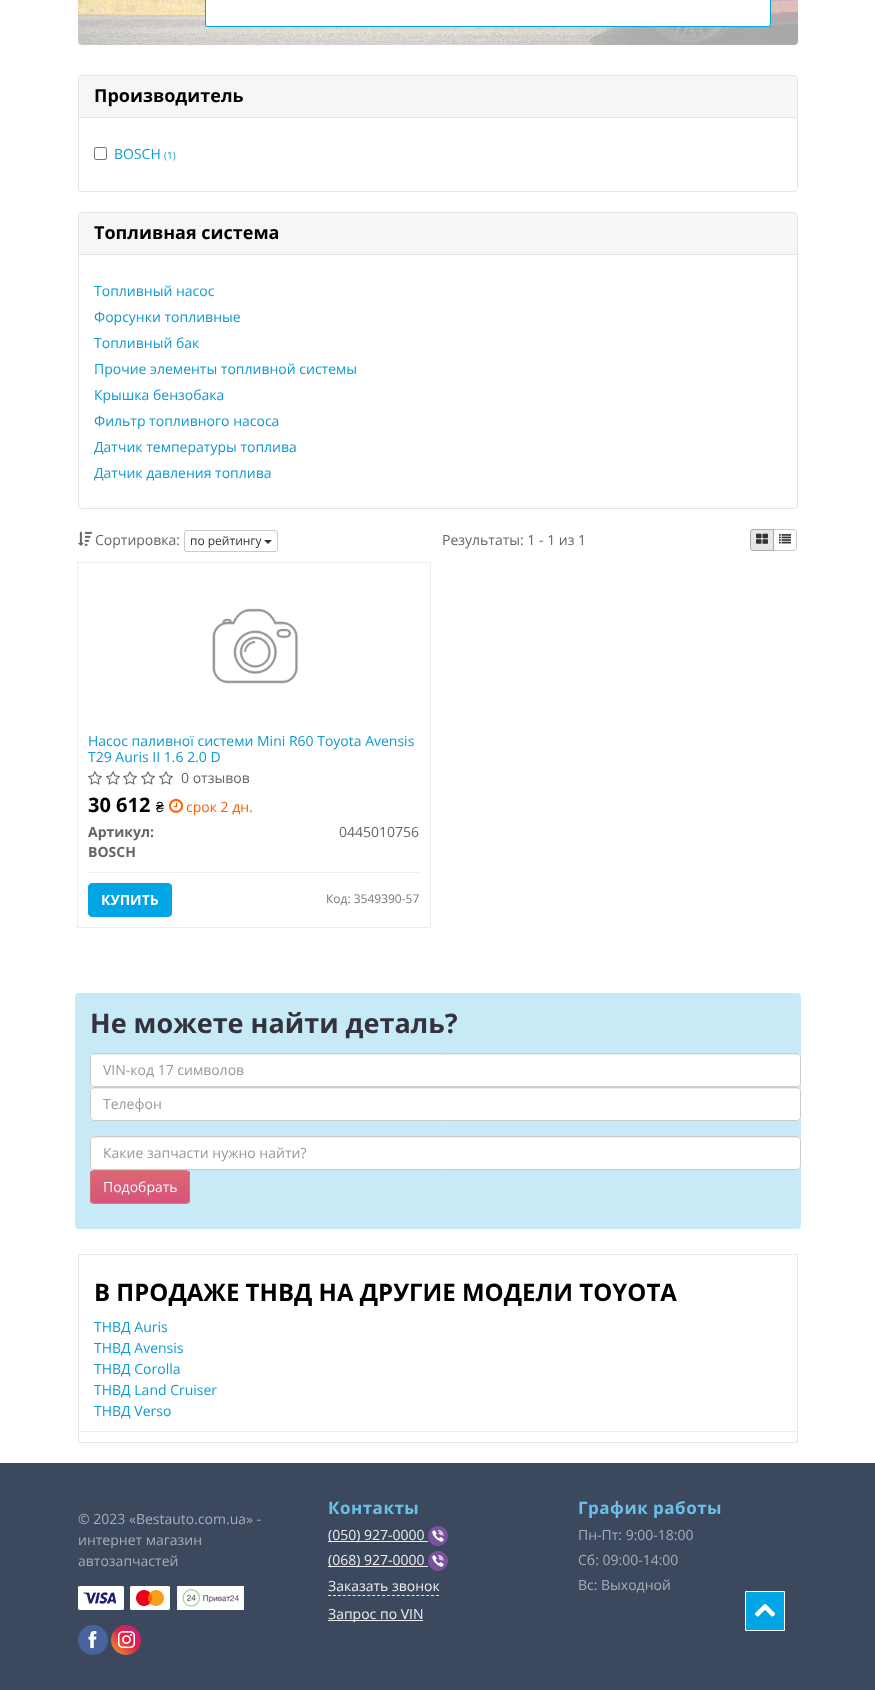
<!DOCTYPE html>
<meta charset="utf-8">
<style>body { margin: 0 } canvas { display: block }</style>
<canvas id="canvas" width="875" height="1690"></canvas>
<script type="module">
  const canvas = document.getElementById("canvas");
  const g = canvas.getContext("2d");
  g.miterLimit = 4;
  g.fontKerning = "normal";
  function drawText(s, x, y, [font, color]) {
    g.font = font;
    g.fillStyle = color;
    g.fillText(s, x, y);
  }
  function fillBox(x, y, w, h, color) {
    g.fillStyle = color;
    g.fillRect(x, y, w, h);
  }
  function fillRounded(x, y, w, h, r, color) {
    g.fillStyle = color;
    g.beginPath();
    g.roundRect(x, y, w, h, r);
    g.fill();
  }
  async function drawPicture(src, x, y, w, h) {
    const img = new Image();
    img.src = src;
    await img.decode();
    g.drawImage(img, x, y, w, h);
  }
  let gradient;

  const s1 = ["bold 18px Open Sans", "#000000"];
  const s2 = ["14px Open Sans", "#0E9AD2"];
  const s3 = ["10px Open Sans", "#0E9AD2"];
  const s4 = ["14px Open Sans", "#666666"];
  const s5 = ["12px Open Sans", "#333333"];
  const s6 = ["bold 20px Open Sans", "#000000"];
  const s7 = ["14px Liberation Sans", "#000000"];
  const s8 = ["14px Open Sans", "#FF6000"];
  const s9 = ["bold 14px Open Sans", "#666666"];
  const s10 = ["bold 14px Open Sans", "#FFFFFF"];
  const s11 = ["12px Open Sans", "#777777"];
  const s12 = ["bold 27px Open Sans", "#33333F"];
  const s13 = ["14px Open Sans", "#999999"];
  const s14 = ["14px Open Sans", "#EBF8FC"];
  const s15 = ["bold 24px Open Sans", "#000000"];
  const s16 = ["14px Open Sans", "#A7AEB6"];
  const s17 = ["bold 17px Open Sans", "#6AC0E6"];
  const s18 = ["14px Open Sans", "#EDEDED"];

  fillBox(0, 0, 875, 1690, "#FFFFFF");
  await drawPicture("pic1.png", 78, 0, 720, 45);
  fillRounded(206, -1, 564, 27, 1, "#FFFFFF");
  g.beginPath();
  g.roundRect(205.5, -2.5, 565, 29, 1.5);
  g.strokeStyle = "#01A4E5";
  g.stroke();
  g.beginPath();
  g.roundRect(78.5, 75.5, 719, 116, 3.5);
  g.strokeStyle = "#E4E4E4";
  g.stroke();
  fillBox(79, 76, 718, 41, "#F6F6F6");
  fillBox(79, 117, 718, 1, "#E4E4E4");
  drawText("Производитель", 94, 102, s1);
  g.beginPath();
  g.roundRect(94.5, 147.5, 12, 12, 1.5);
  g.strokeStyle = "#767676";
  g.stroke();
  drawText("BOSCH", 114, 159, s2);
  drawText("(1)", 164, 159, s3);
  g.beginPath();
  g.roundRect(78.5, 212.5, 719, 296, 3.5);
  g.strokeStyle = "#E4E4E4";
  g.stroke();
  fillBox(79, 213, 718, 41, "#F6F6F6");
  fillBox(79, 254, 718, 1, "#E4E4E4");
  drawText("Топливная система", 94, 239, s1);
  drawText("Топливный насос", 94, 296, s2);
  drawText("Форсунки топливные", 94, 322, s2);
  drawText("Топливный бак", 94, 348, s2);
  drawText("Прочие элементы топливной системы", 94, 374, s2);
  drawText("Крышка бензобака", 94, 400, s2);
  drawText("Фильтр топливного насоса", 94, 426, s2);
  drawText("Датчик температуры топлива", 94, 452, s2);
  drawText("Датчик давления топлива", 94, 478, s2);
  await drawPicture("pic2.png", 78, 531, 14, 15);
  drawText("Сортировка:", 95, 545, s4);
  g.beginPath();
  g.roundRect(184.5, 530.5, 93, 21, 2.5);
  g.strokeStyle = "#CCCCCC";
  g.stroke();
  drawText("по рейтингу", 190, 545, s5);
  g.beginPath();
  g.moveTo(264, 540);
  g.lineTo(272, 540);
  g.lineTo(268, 544);
  g.closePath();
  g.fill();
  drawText("Результаты: 1 - 1 из 1", 442, 545, s4);
  g.beginPath();
  g.roundRect(773.5, 529.5, 23, 21, [0, 2.5, 2.5, 0]);
  g.stroke();
  g.fillStyle = "#E6E6E6";
  g.beginPath();
  g.roundRect(750.5, 529.5, 23, 21, [2.5, 0, 0, 2.5]);
  g.fill();
  g.strokeStyle = "#ADADAD";
  g.stroke();
  await drawPicture("pic3.png", 756, 533, 12, 11);
  await drawPicture("pic4.png", 779, 534, 12, 10);
  g.strokeStyle = "#EDEDED";
  g.strokeRect(77.5, 562.5, 353, 365);
  await drawPicture("pic5.png", 212, 608, 86, 76);
  drawText("Насос паливної системи Mini R60 Toyota Avensis", 88, 746, s2);
  drawText("T29 Auris II 1.6 2.0 D", 88, 762, s2);
  await drawPicture("pic6.png", 88, 771, 14, 14);
  await drawPicture("pic6.png", 106, 771, 14, 14);
  await drawPicture("pic6.png", 123, 771, 14, 14);
  await drawPicture("pic6.png", 141, 771, 14, 14);
  await drawPicture("pic6.png", 159, 771, 14, 14);
  drawText("0 отзывов", 181, 783, s4);
  drawText("30 612", 88, 812, s6);
  drawText("₴", 156, 812, s7);
  await drawPicture("pic7.png", 169, 798, 14, 15);
  drawText("срок 2 дн.", 186, 812, s8);
  drawText("Артикул:", 88, 837, s9);
  drawText("0445010756", 339, 837, s4);
  drawText("BOSCH", 88, 857, s9);
  fillBox(88, 872, 332, 1, "#EFEFEF");
  g.fillStyle = "#01A4E5";
  g.beginPath();
  g.roundRect(88.5, 883.5, 83, 33, 3.5);
  g.fill();
  g.strokeStyle = "#01A4E5";
  g.stroke();
  drawText("КУПИТЬ", 101, 905, s10);
  drawText("Код: 3549390-57", 326, 903, s11);
  fillRounded(75, 993, 726, 236, 4, "#C7EAF7");
  drawText("Не можете найти деталь?", 90, 1033, s12);
  fillRounded(90, 1053, 711, 34, 4, "#FFFFFF");
  g.fillStyle = "#ECECEC";
  g.beginPath();
  g.moveTo(94, 1055);
  g.lineTo(797, 1055);
  g.bezierCurveTo(799, 1055, 800, 1056, 800, 1058);
  g.bezierCurveTo(800, 1056, 799, 1054, 797, 1054);
  g.lineTo(94, 1054);
  g.bezierCurveTo(92, 1054, 91, 1056, 91, 1058);
  g.bezierCurveTo(91, 1056, 92, 1055, 94, 1055);
  g.closePath();
  g.fill();
  g.beginPath();
  g.roundRect(90.5, 1053.5, 710, 33, 3.5);
  g.strokeStyle = "#CCCCCC";
  g.stroke();
  drawText("VIN-код 17 символов", 103, 1075, s13);
  fillRounded(90, 1087, 711, 34, 4, "#FFFFFF");
  g.fillStyle = "#ECECEC";
  g.beginPath();
  g.moveTo(94, 1089);
  g.lineTo(797, 1089);
  g.bezierCurveTo(799, 1089, 800, 1090, 800, 1092);
  g.bezierCurveTo(800, 1090, 799, 1088, 797, 1088);
  g.lineTo(94, 1088);
  g.bezierCurveTo(92, 1088, 91, 1090, 91, 1092);
  g.bezierCurveTo(91, 1090, 92, 1089, 94, 1089);
  g.closePath();
  g.fill();
  g.beginPath();
  g.roundRect(90.5, 1087.5, 710, 33, 3.5);
  g.stroke();
  drawText("Телефон", 103, 1109, s13);
  fillRounded(90, 1136, 711, 34, 4, "#FFFFFF");
  g.fillStyle = "#ECECEC";
  g.beginPath();
  g.moveTo(94, 1138);
  g.lineTo(797, 1138);
  g.bezierCurveTo(799, 1138, 800, 1139, 800, 1141);
  g.bezierCurveTo(800, 1139, 799, 1137, 797, 1137);
  g.lineTo(94, 1137);
  g.bezierCurveTo(92, 1137, 91, 1139, 91, 1141);
  g.bezierCurveTo(91, 1139, 92, 1138, 94, 1138);
  g.closePath();
  g.fill();
  g.beginPath();
  g.roundRect(90.5, 1136.5, 710, 33, 3.5);
  g.stroke();
  drawText("Какие запчасти нужно найти?", 103, 1158, s13);
  g.save();
  g.beginPath();
  g.roundRect(90, 1170, 100, 34, 4);
  g.clip();
  gradient = g.createLinearGradient(140, 1171, 140, 1203);
  gradient.addColorStop(0, "#DB6771");
  gradient.addColorStop(1, "#D9537C");
  g.fillStyle = gradient;
  g.fillRect(90, 1171, 100, 32);
  g.restore();
  g.beginPath();
  g.roundRect(90.5, 1170.5, 99, 33, 3.5);
  g.strokeStyle = "#CF7B7C";
  g.stroke();
  drawText("Подобрать", 103, 1192, s14);
  g.strokeStyle = "#E9E9E9";
  g.strokeRect(78.5, 1254.5, 719, 188);
  drawText("В ПРОДАЖЕ ТНВД НА ДРУГИЕ МОДЕЛИ TOYOTA", 94, 1301, s15);
  fillBox(79, 1431, 718, 1, "#EDEDED");
  drawText("ТНВД Auris", 94, 1332, s2);
  drawText("ТНВД Avensis", 94, 1353, s2);
  drawText("ТНВД Corolla", 94, 1374, s2);
  drawText("ТНВД Land Cruiser", 94, 1395, s2);
  drawText("ТНВД Verso", 94, 1416, s2);
  fillBox(0, 1463, 875, 227, "#3B485D");
  drawText("© 2023 «Bestauto.com.ua» -", 78, 1524, s16);
  drawText("интернет магазин", 78, 1545, s16);
  drawText("автозапчастей", 78, 1566, s16);
  await drawPicture("pic8.png", 78, 1586, 166, 24);
  g.fillStyle = "#48649E";
  g.beginPath();
  g.arc(93, 1640, 15, 0, Math.PI * 2);
  g.fill();
  await drawPicture("pic9.png", 88, 1631, 9, 18);
  gradient = g.createLinearGradient(111, 1655, 141, 1625);
  gradient.addColorStop(0, "#F09433");
  gradient.addColorStop(0.25, "#E6683C");
  gradient.addColorStop(0.5, "#DC2743");
  gradient.addColorStop(0.75, "#CC2366");
  gradient.addColorStop(1, "#BC1888");
  g.fillStyle = gradient;
  g.beginPath();
  g.arc(126, 1640, 15, 0, Math.PI * 2);
  g.fill();
  await drawPicture("pic10.png", 118, 1631, 17, 18);
  g.letterSpacing = "0.5px";
  drawText("Контакты", 328, 1514, s17);
  fillBox(328, 1541, 100, 1, "#EDEDED");
  g.letterSpacing = "0px";
  drawText("(050) 927-0000", 328, 1540, s18);
  await drawPicture("pic11.png", 428, 1526, 20, 20);
  fillBox(328, 1566, 100, 1, "#EDEDED");
  drawText("(068) 927-0000", 328, 1565, s18);
  await drawPicture("pic11.png", 428, 1551, 20, 20);
  drawText("Заказать звонок", 328, 1591, s18);
  g.beginPath();
  g.moveTo(328, 1595.5);
  g.lineTo(439, 1595.5);
  g.strokeStyle = "#EDEDED";
  g.setLineDash([3, 1.91]);
  g.stroke();
  fillBox(328, 1620, 95, 1, "#EDEDED");
  drawText("Запрос по VIN", 328, 1619, s18);
  g.letterSpacing = "0.5px";
  drawText("График работы", 578, 1514, s17);
  g.letterSpacing = "0px";
  drawText("Пн-Пт: 9:00-18:00", 578, 1540, s16);
  drawText("Сб: 09:00-14:00", 578, 1565, s16);
  drawText("Вс: Выходной", 578, 1590, s16);
  g.fillStyle = "#01A4E5";
  g.beginPath();
  g.rect(745.5, 1591.5, 39, 39);
  g.fill();
  g.strokeStyle = "#FFFFFF";
  g.setLineDash([]);
  g.stroke();
  await drawPicture("pic12.png", 755, 1604, 20, 13);
</script>
